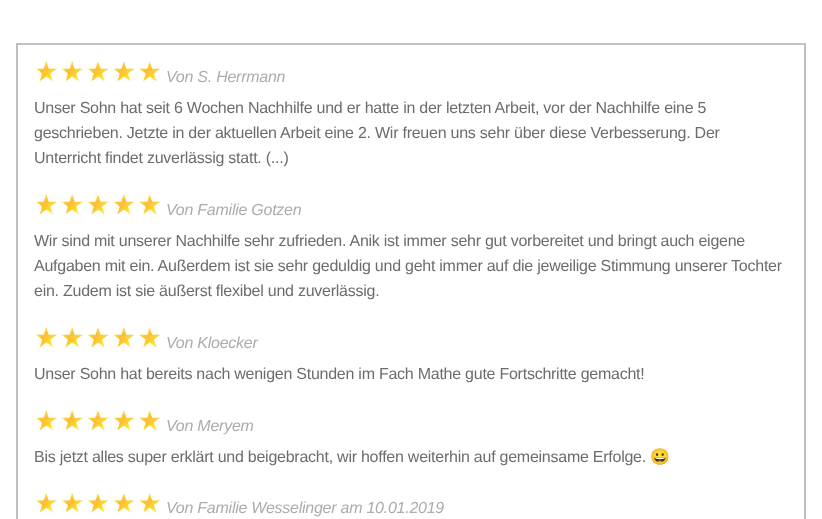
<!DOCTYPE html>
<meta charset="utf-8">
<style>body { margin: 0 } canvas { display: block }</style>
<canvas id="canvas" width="822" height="519"></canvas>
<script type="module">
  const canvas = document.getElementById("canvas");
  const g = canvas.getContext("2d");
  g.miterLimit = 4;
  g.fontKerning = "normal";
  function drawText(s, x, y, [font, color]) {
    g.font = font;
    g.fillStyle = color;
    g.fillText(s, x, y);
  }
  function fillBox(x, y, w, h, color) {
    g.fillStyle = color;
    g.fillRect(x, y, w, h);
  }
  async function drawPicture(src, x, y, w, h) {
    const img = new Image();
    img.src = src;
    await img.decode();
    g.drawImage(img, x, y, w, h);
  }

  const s1 = ["italic 16px Liberation Sans", "#ACACAC"];
  const s2 = ["16px Liberation Sans", "#6C6C6E"];
  const s3 = ["16px Noto Color Emoji", "#6C6C6E"];

  fillBox(0, 0, 822, 519, "#FFFFFF");
  g.strokeStyle = "#C0C0C0";
  g.lineWidth = 2;
  g.strokeRect(17, 44, 788, 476);
  await drawPicture("pic1.png", 34, 61, 127, 21);
  g.letterSpacing = "-0.25px";
  drawText("Von S. Herrmann", 166, 82, s1);
  drawText("Unser Sohn hat seit 6 Wochen Nachhilfe und er hatte in der letzten Arbeit, vor der Nachhilfe eine 5", 34, 113, s2);
  drawText("geschrieben. Jetzte in der aktuellen Arbeit eine 2. Wir freuen uns sehr über diese Verbesserung. Der", 34, 138, s2);
  drawText("Unterricht findet zuverlässig statt. (...)", 34, 163, s2);
  await drawPicture("pic1.png", 34, 194, 127, 21);
  drawText("Von Familie Gotzen", 166, 215, s1);
  drawText("Wir sind mit unserer Nachhilfe sehr zufrieden. Anik ist immer sehr gut vorbereitet und bringt auch eigene", 34, 246, s2);
  drawText("Aufgaben mit ein. Außerdem ist sie sehr geduldig und geht immer auf die jeweilige Stimmung unserer Tochter", 34, 271, s2);
  drawText("ein. Zudem ist sie äußerst flexibel und zuverlässig.", 34, 296, s2);
  await drawPicture("pic1.png", 34, 327, 127, 21);
  drawText("Von Kloecker", 166, 348, s1);
  drawText("Unser Sohn hat bereits nach wenigen Stunden im Fach Mathe gute Fortschritte gemacht!", 34, 379, s2);
  await drawPicture("pic1.png", 34, 410, 127, 21);
  drawText("Von Meryem", 166, 431, s1);
  drawText("Bis jetzt alles super erklärt und beigebracht, wir hoffen weiterhin auf gemeinsame Erfolge.", 34, 462, s2);
  drawText("😀", 650, 462, s3);
  await drawPicture("pic2.png", 34, 493, 128, 20);
  drawText("Von Familie Wesselinger am 10.01.2019", 166, 513, s1);
</script>
